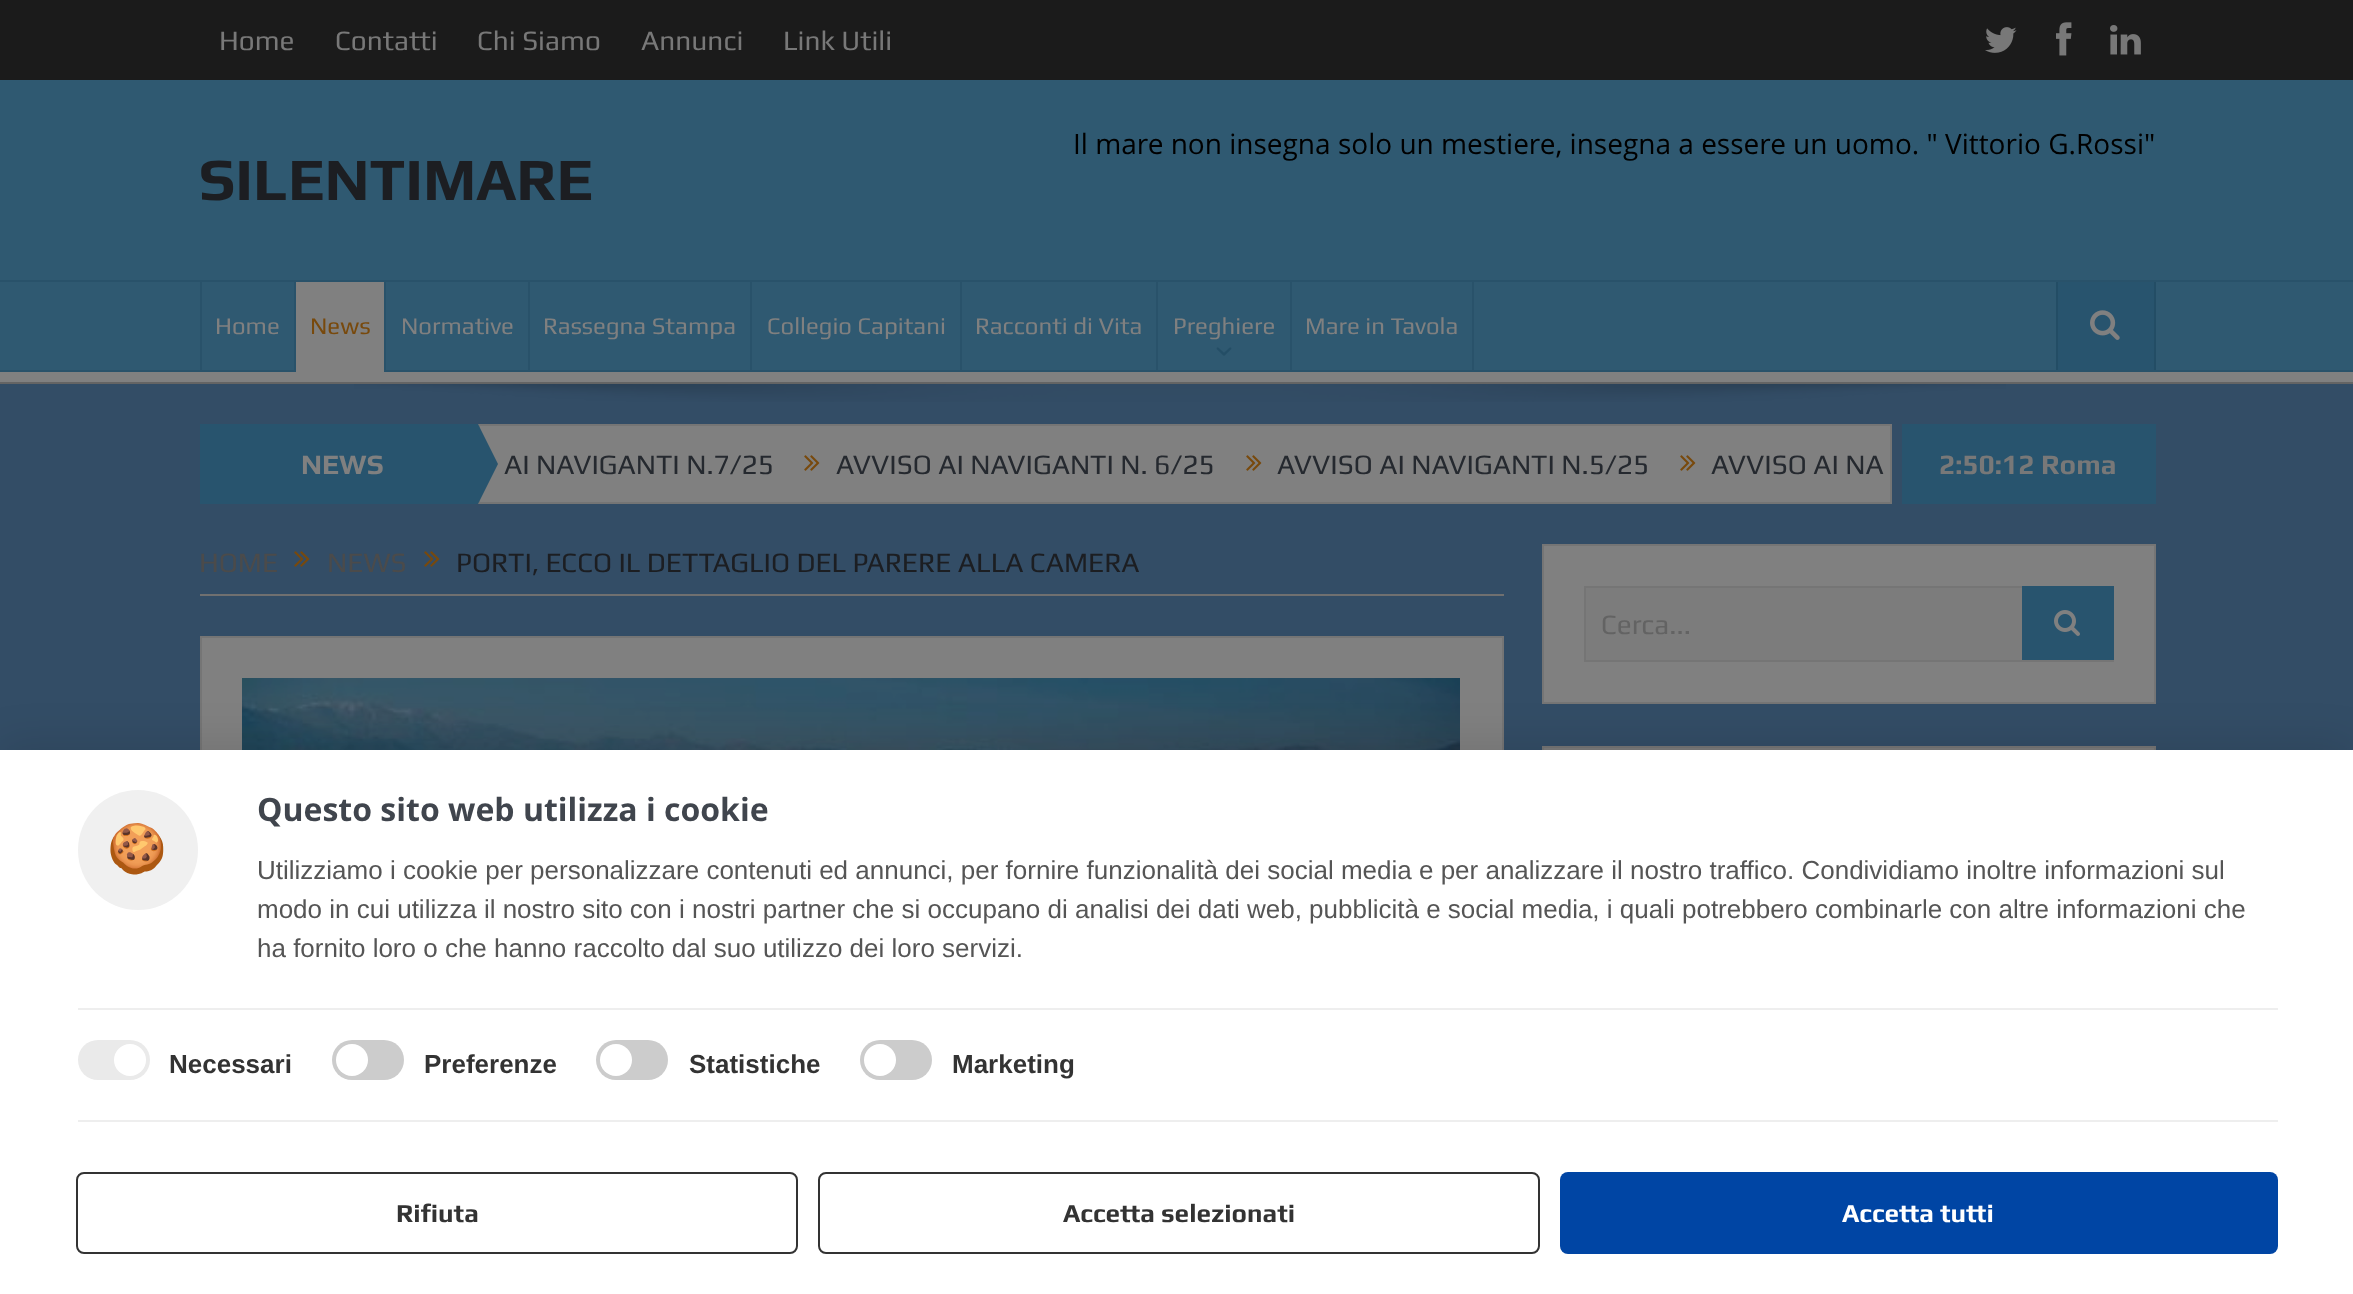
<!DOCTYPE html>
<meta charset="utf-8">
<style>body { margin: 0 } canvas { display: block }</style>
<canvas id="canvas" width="2353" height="1294"></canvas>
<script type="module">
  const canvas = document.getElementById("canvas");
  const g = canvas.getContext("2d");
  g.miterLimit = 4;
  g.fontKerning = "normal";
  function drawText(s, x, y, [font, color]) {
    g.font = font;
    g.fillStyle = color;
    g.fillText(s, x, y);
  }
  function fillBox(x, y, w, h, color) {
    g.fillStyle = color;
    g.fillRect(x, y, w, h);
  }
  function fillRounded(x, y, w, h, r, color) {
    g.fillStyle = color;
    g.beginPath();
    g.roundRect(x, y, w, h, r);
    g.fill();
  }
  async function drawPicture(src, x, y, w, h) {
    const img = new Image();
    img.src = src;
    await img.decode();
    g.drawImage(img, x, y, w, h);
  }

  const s1 = ["28px Play", "#787878"];
  const s2 = ["28px Open Sans", "#000000"];
  const s3 = ["bold 60px Play", "#1C1E22"];
  const s4 = ["24px Play", "#808080"];
  const s5 = ["24px Play", "#78490C"];
  const s6 = ["bold 28px Play", "#808080"];
  const s7 = ["28px Play", "#25292F"];
  const s8 = ["bold 28px Play", "#787878"];
  const s9 = ["28px Play", "#4B4B4B"];
  const s10 = ["28px Play", "#1C1E22"];
  const s11 = ["28px Play", "#636363"];
  const s12 = ["48px Noto Color Emoji", "#333333"];
  const s13 = ["bold 32px Open Sans", "#40454D"];
  const s14 = ["26px Liberation Sans", "#555555"];
  const s15 = ["bold 26px Liberation Sans", "#333333"];
  const s16 = ["bold 26px Play", "#333333"];
  const s17 = ["bold 26px Play", "#FFFFFF"];

  fillBox(0, 0, 2353, 1294, "#334D66");
  fillBox(0, 0, 2353, 80, "#1B1B1B");
  drawText("Home", 219, 50, s1);
  drawText("Contatti", 335, 50, s1);
  drawText("Chi Siamo", 477, 50, s1);
  drawText("Annunci", 641, 50, s1);
  drawText("Link Utili", 783, 50, s1);
  await drawPicture("pic1.png", 1985, 27, 32, 26);
  await drawPicture("pic2.png", 2056, 22, 16, 34);
  await drawPicture("pic3.png", 2110, 25, 31, 30);
  fillBox(0, 80, 2353, 200, "#2F5971");
  drawText("Il mare non insegna solo un mestiere, insegna a essere un uomo. \" Vittorio G.Rossi\"", 1073, 154, s2);
  drawText("SILENTIMARE", 199, 200, s3);
  fillBox(0, 372, 2353, 10, "#808080");
  fillBox(0, 280, 2353, 2, "#29526A");
  fillBox(0, 382, 2353, 2, "#646464");
  fillBox(0, 282, 2353, 88, "#2F5971");
  fillBox(0, 370, 2353, 2, "#29526A");
  fillBox(200, 282, 2, 88, "#29526A");
  drawText("Home", 215, 334, s4);
  fillBox(294, 282, 2, 88, "#29526A");
  fillBox(296, 282, 88, 90, "#808080");
  drawText("News", 310, 334, s5);
  fillBox(384, 282, 2, 88, "#29526A");
  drawText("Normative", 401, 334, s4);
  fillBox(528, 282, 2, 88, "#29526A");
  drawText("Rassegna Stampa", 543, 334, s4);
  fillBox(750, 282, 2, 88, "#29526A");
  drawText("Collegio Capitani", 767, 334, s4);
  fillBox(960, 282, 2, 88, "#29526A");
  drawText("Racconti di Vita", 975, 334, s4);
  fillBox(1156, 282, 2, 88, "#29526A");
  drawText("Preghiere", 1173, 334, s4);
  await drawPicture("pic4.png", 1216, 347, 16, 9);
  fillBox(1472, 282, 2, 88, "#29526A");
  fillBox(1290, 282, 2, 88, "#29526A");
  drawText("Mare in Tavola", 1305, 334, s4);
  fillBox(2058, 282, 96, 88, "#28546E");
  fillBox(2154, 282, 2, 88, "#234D65");
  fillBox(2056, 282, 2, 88, "#234D65");
  await drawPicture("pic5.png", 2090, 310, 30, 30);
  await drawPicture("pic6.png", 354, 384, 1652, 18);
  fillBox(200, 424, 278, 80, "#28546E");
  drawText("NEWS", 301, 474, s6);
  g.beginPath();
  g.rect(479, 425, 1412, 78);
  g.fill();
  g.strokeStyle = "#757575";
  g.lineWidth = 2;
  g.stroke();
  g.fillStyle = "#28546E";
  g.beginPath();
  g.moveTo(478, 504);
  g.lineTo(478, 424);
  g.lineTo(498, 464);
  g.closePath();
  g.fill();
  drawText("AI NAVIGANTI N.7/25", 504, 474, s7);
  await drawPicture("pic7.png", 804, 455, 16, 16);
  drawText("AVVISO AI NAVIGANTI N. 6/25", 836, 474, s7);
  await drawPicture("pic7.png", 1246, 455, 16, 16);
  drawText("AVVISO AI NAVIGANTI N.5/25", 1277, 474, s7);
  await drawPicture("pic7.png", 1680, 455, 16, 16);
  drawText("AVVISO AI NA", 1711, 474, s7);
  fillBox(1902, 424, 254, 80, "#28546E");
  drawText("2:50:12 Roma", 1939, 474, s8);
  fillBox(200, 594, 1304, 2, "#707070");
  drawText("HOME", 199, 572, s9);
  await drawPicture("pic8.png", 294, 551, 16, 16);
  drawText("NEWS", 327, 572, s9);
  await drawPicture("pic8.png", 424, 551, 16, 16);
  drawText("PORTI, ECCO IL DETTAGLIO DEL PARERE ALLA CAMERA", 456, 572, s10);
  fillBox(202, 638, 1300, 112, "#808080");
  g.strokeRect(201, 637, 1302, 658);
  await drawPicture("pic9.png", 242, 678, 1218, 72);
  g.beginPath();
  g.rect(1543, 545, 612, 158);
  g.fill();
  g.stroke();
  fillBox(1586, 588, 436, 72, "#7C7C7C");
  g.strokeRect(1585, 587, 528, 74);
  drawText("Cerca...", 1601, 634, s11);
  fillBox(2022, 586, 92, 74, "#28546E");
  await drawPicture("pic10.png", 2054, 610, 26, 26);
  g.strokeRect(1543, 747, 612, 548);
  fillBox(1544, 748, 610, 2, "#7C7C7C");
  g.fillStyle = "rgba(0, 0, 0, 0.1)";
  g.filter = "blur(20px)";
  g.beginPath();
  g.rect(0, 742, 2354, 544);
  g.fill();
  g.filter = "none";
  fillBox(0, 750, 2353, 544, "#FFFFFF");
  g.fillStyle = "#F0F0F0";
  g.beginPath();
  g.arc(138, 850, 60, 0, Math.PI * 2);
  g.fill();
  drawText("🍪", 107, 865, s12);
  drawText("Questo sito web utilizza i cookie", 257, 821, s13);
  drawText("Utilizziamo i cookie per personalizzare contenuti ed annunci, per fornire funzionalità dei social media e per analizzare il nostro traffico. Condividiamo inoltre informazioni sul", 257, 879, s14);
  drawText("modo in cui utilizza il nostro sito con i nostri partner che si occupano di analisi dei dati web, pubblicità e social media, i quali potrebbero combinarle con altre informazioni che", 257, 918, s14);
  drawText("ha fornito loro o che hanno raccolto dal suo utilizzo dei loro servizi.", 257, 957, s14);
  fillBox(78, 1008, 2200, 2, "#EEEEEE");
  fillBox(78, 1120, 2200, 2, "#EEEEEE");
  fillRounded(78, 1040, 72, 40, 20, "#EAEAEA");
  g.fillStyle = "#FFFFFF";
  g.beginPath();
  g.arc(130, 1060, 16, 0, Math.PI * 2);
  g.fill();
  drawText("Necessari", 169, 1073, s15);
  fillRounded(332, 1040, 72, 40, 20, "#CCCCCC");
  g.fillStyle = "#FFFFFF";
  g.beginPath();
  g.arc(352, 1060, 16, 0, Math.PI * 2);
  g.fill();
  drawText("Preferenze", 424, 1073, s15);
  fillRounded(596, 1040, 72, 40, 20, "#CCCCCC");
  g.fillStyle = "#FFFFFF";
  g.beginPath();
  g.arc(616, 1060, 16, 0, Math.PI * 2);
  g.fill();
  drawText("Statistiche", 689, 1073, s15);
  fillRounded(860, 1040, 72, 40, 20, "#CCCCCC");
  g.fillStyle = "#FFFFFF";
  g.beginPath();
  g.arc(880, 1060, 16, 0, Math.PI * 2);
  g.fill();
  drawText("Marketing", 952, 1073, s15);
  g.beginPath();
  g.roundRect(77, 1173, 720, 80, 7);
  g.strokeStyle = "#333333";
  g.stroke();
  drawText("Rifiuta", 396, 1222, s16);
  g.beginPath();
  g.roundRect(819, 1173, 720, 80, 7);
  g.stroke();
  drawText("Accetta selezionati", 1063, 1222, s16);
  fillRounded(1560, 1172, 718, 82, 8, "#0045A4");
  drawText("Accetta tutti", 1842, 1222, s17);
</script>
